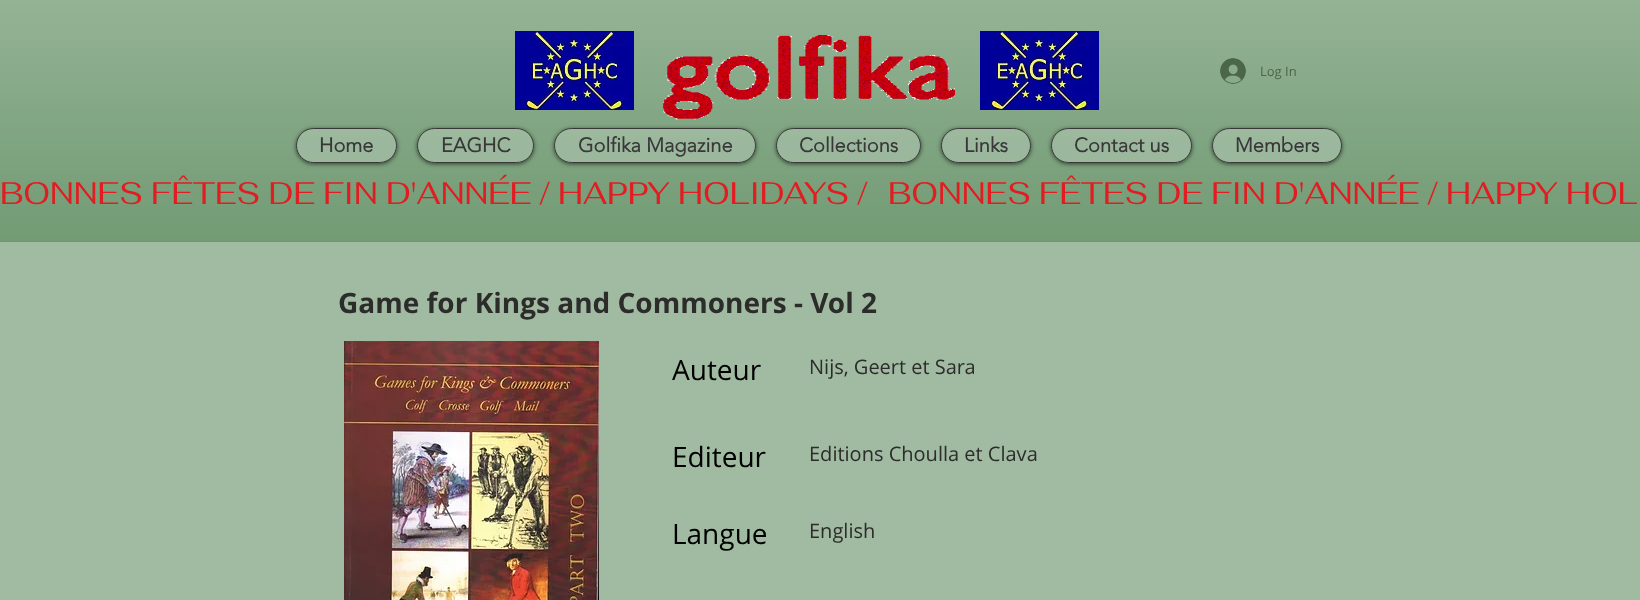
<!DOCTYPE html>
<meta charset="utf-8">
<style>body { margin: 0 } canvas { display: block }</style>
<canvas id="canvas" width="1640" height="600"></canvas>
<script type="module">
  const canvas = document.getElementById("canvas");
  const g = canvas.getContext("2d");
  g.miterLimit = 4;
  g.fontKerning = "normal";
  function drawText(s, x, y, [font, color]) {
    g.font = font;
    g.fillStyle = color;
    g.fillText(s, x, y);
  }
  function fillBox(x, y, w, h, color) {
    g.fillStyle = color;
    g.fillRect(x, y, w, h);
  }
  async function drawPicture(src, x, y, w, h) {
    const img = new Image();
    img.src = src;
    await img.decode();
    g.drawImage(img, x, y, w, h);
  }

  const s1 = ["13px Open Sans", "#4A664B"];
  const s2 = ["bold 20px 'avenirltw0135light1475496'", "#383838"];
  const s3 = ["31px Fahkwang", "#E21C21"];
  const s4 = ["bold 28px Open Sans", "#2C2C2B"];
  const s5 = ["28px Open Sans", "#000000"];
  const s6 = ["20px Open Sans", "#2C2C2B"];

  fillBox(0, 0, 1640, 600, "#6F9971");
  await drawPicture("pic1.png", 0, 0, 1640, 241);
  await drawPicture("pic2.png", 515, 31, 119, 79);
  await drawPicture("pic3.png", 663, 35, 292, 85);
  await drawPicture("pic2.png", 980, 31, 119, 79);
  await drawPicture("pic4.png", 1220, 58, 26, 26);
  drawText("Log In", 1260, 76, s1);
  g.save();
  g.beginPath();
  g.moveTo(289, 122);
  g.lineTo(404, 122);
  g.lineTo(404, 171);
  g.lineTo(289, 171);
  g.closePath();
  g.moveTo(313.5, 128);
  g.lineTo(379.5, 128);
  g.bezierCurveTo(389, 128, 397, 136, 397, 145.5);
  g.bezierCurveTo(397, 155, 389, 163, 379.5, 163);
  g.lineTo(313.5, 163);
  g.bezierCurveTo(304, 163, 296, 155, 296, 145.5);
  g.bezierCurveTo(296, 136, 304, 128, 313.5, 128);
  g.closePath();
  g.clip("evenodd");
  g.fillStyle = "rgba(0, 0, 0, 0.6)";
  g.filter = "blur(2px)";
  g.beginPath();
  g.roundRect(296, 129, 101, 35, 17.5);
  g.fill();
  g.filter = "none";
  g.restore();
  g.fillStyle = "rgba(161, 187, 162, 0.84)";
  g.beginPath();
  g.roundRect(296.5, 128.5, 100, 34, 17);
  g.fill();
  g.strokeStyle = "#383838";
  g.stroke();
  drawText("Home", 319, 152, s2);
  g.save();
  g.beginPath();
  g.moveTo(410, 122);
  g.lineTo(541, 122);
  g.lineTo(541, 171);
  g.lineTo(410, 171);
  g.closePath();
  g.moveTo(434.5, 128);
  g.lineTo(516.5, 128);
  g.bezierCurveTo(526, 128, 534, 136, 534, 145.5);
  g.bezierCurveTo(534, 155, 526, 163, 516.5, 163);
  g.lineTo(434.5, 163);
  g.bezierCurveTo(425, 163, 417, 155, 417, 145.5);
  g.bezierCurveTo(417, 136, 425, 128, 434.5, 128);
  g.closePath();
  g.clip("evenodd");
  g.fillStyle = "rgba(0, 0, 0, 0.6)";
  g.filter = "blur(2px)";
  g.beginPath();
  g.roundRect(417, 129, 117, 35, 17.5);
  g.fill();
  g.filter = "none";
  g.restore();
  g.fillStyle = "rgba(161, 187, 162, 0.84)";
  g.beginPath();
  g.roundRect(417.5, 128.5, 116, 34, 17);
  g.fill();
  g.stroke();
  drawText("EAGHC", 441, 152, s2);
  g.save();
  g.beginPath();
  g.moveTo(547, 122);
  g.lineTo(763, 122);
  g.lineTo(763, 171);
  g.lineTo(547, 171);
  g.closePath();
  g.moveTo(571.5, 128);
  g.lineTo(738.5, 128);
  g.bezierCurveTo(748, 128, 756, 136, 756, 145.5);
  g.bezierCurveTo(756, 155, 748, 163, 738.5, 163);
  g.lineTo(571.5, 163);
  g.bezierCurveTo(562, 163, 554, 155, 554, 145.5);
  g.bezierCurveTo(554, 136, 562, 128, 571.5, 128);
  g.closePath();
  g.clip("evenodd");
  g.fillStyle = "rgba(0, 0, 0, 0.6)";
  g.filter = "blur(2px)";
  g.beginPath();
  g.roundRect(554, 129, 202, 35, 17.5);
  g.fill();
  g.filter = "none";
  g.restore();
  g.fillStyle = "rgba(161, 187, 162, 0.84)";
  g.beginPath();
  g.roundRect(554.5, 128.5, 201, 34, 17);
  g.fill();
  g.stroke();
  drawText("Golfika Magazine", 578, 152, s2);
  g.save();
  g.beginPath();
  g.moveTo(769, 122);
  g.lineTo(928, 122);
  g.lineTo(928, 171);
  g.lineTo(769, 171);
  g.closePath();
  g.moveTo(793.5, 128);
  g.lineTo(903.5, 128);
  g.bezierCurveTo(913, 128, 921, 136, 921, 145.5);
  g.bezierCurveTo(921, 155, 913, 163, 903.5, 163);
  g.lineTo(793.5, 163);
  g.bezierCurveTo(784, 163, 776, 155, 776, 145.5);
  g.bezierCurveTo(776, 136, 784, 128, 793.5, 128);
  g.closePath();
  g.clip("evenodd");
  g.fillStyle = "rgba(0, 0, 0, 0.6)";
  g.filter = "blur(2px)";
  g.beginPath();
  g.roundRect(776, 129, 145, 35, 17.5);
  g.fill();
  g.filter = "none";
  g.restore();
  g.fillStyle = "rgba(161, 187, 162, 0.84)";
  g.beginPath();
  g.roundRect(776.5, 128.5, 144, 34, 17);
  g.fill();
  g.stroke();
  drawText("Collections", 799, 152, s2);
  g.save();
  g.beginPath();
  g.moveTo(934, 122);
  g.lineTo(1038, 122);
  g.lineTo(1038, 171);
  g.lineTo(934, 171);
  g.closePath();
  g.moveTo(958.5, 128);
  g.lineTo(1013.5, 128);
  g.bezierCurveTo(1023, 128, 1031, 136, 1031, 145.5);
  g.bezierCurveTo(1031, 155, 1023, 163, 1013.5, 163);
  g.lineTo(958.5, 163);
  g.bezierCurveTo(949, 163, 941, 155, 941, 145.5);
  g.bezierCurveTo(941, 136, 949, 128, 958.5, 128);
  g.closePath();
  g.clip("evenodd");
  g.fillStyle = "rgba(0, 0, 0, 0.6)";
  g.filter = "blur(2px)";
  g.beginPath();
  g.roundRect(941, 129, 90, 35, 17.5);
  g.fill();
  g.filter = "none";
  g.restore();
  g.fillStyle = "rgba(161, 187, 162, 0.84)";
  g.beginPath();
  g.roundRect(941.5, 128.5, 89, 34, 17);
  g.fill();
  g.stroke();
  drawText("Links", 964, 152, s2);
  g.save();
  g.beginPath();
  g.moveTo(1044, 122);
  g.lineTo(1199, 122);
  g.lineTo(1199, 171);
  g.lineTo(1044, 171);
  g.closePath();
  g.moveTo(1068.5, 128);
  g.lineTo(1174.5, 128);
  g.bezierCurveTo(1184, 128, 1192, 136, 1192, 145.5);
  g.bezierCurveTo(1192, 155, 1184, 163, 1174.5, 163);
  g.lineTo(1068.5, 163);
  g.bezierCurveTo(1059, 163, 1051, 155, 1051, 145.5);
  g.bezierCurveTo(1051, 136, 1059, 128, 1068.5, 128);
  g.closePath();
  g.clip("evenodd");
  g.fillStyle = "rgba(0, 0, 0, 0.6)";
  g.filter = "blur(2px)";
  g.beginPath();
  g.roundRect(1051, 129, 141, 35, 17.5);
  g.fill();
  g.filter = "none";
  g.restore();
  g.fillStyle = "rgba(161, 187, 162, 0.84)";
  g.beginPath();
  g.roundRect(1051.5, 128.5, 140, 34, 17);
  g.fill();
  g.stroke();
  drawText("Contact us", 1074, 152, s2);
  g.save();
  g.beginPath();
  g.moveTo(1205, 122);
  g.lineTo(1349, 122);
  g.lineTo(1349, 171);
  g.lineTo(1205, 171);
  g.closePath();
  g.moveTo(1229.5, 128);
  g.lineTo(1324.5, 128);
  g.bezierCurveTo(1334, 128, 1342, 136, 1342, 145.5);
  g.bezierCurveTo(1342, 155, 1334, 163, 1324.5, 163);
  g.lineTo(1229.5, 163);
  g.bezierCurveTo(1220, 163, 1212, 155, 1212, 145.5);
  g.bezierCurveTo(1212, 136, 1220, 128, 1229.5, 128);
  g.closePath();
  g.clip("evenodd");
  g.fillStyle = "rgba(0, 0, 0, 0.6)";
  g.filter = "blur(2px)";
  g.beginPath();
  g.roundRect(1212, 129, 130, 35, 17.5);
  g.fill();
  g.filter = "none";
  g.restore();
  g.fillStyle = "rgba(161, 187, 162, 0.84)";
  g.beginPath();
  g.roundRect(1212.5, 128.5, 129, 34, 17);
  g.fill();
  g.stroke();
  drawText("Members", 1235, 152, s2);
  drawText("BONNES FÊTES DE FIN D'ANNÉE / HAPPY HOLIDAYS /", 0, 204, s3);
  drawText("BONNES FÊTES DE FIN D'ANNÉE / HAPPY HOL", 888, 204, s3);
  fillBox(0, 242, 1640, 358, "#A1BBA2");
  drawText("Game for Kings and Commoners - Vol 2", 338, 313, s4);
  await drawPicture("pic5.png", 344, 341, 255, 259);
  drawText("Auteur", 672, 380, s5);
  drawText("Nijs, Geert et Sara", 809, 374, s6);
  drawText("Editeur", 672, 467, s5);
  drawText("Editions Choulla et Clava", 809, 461, s6);
  drawText("Langue", 672, 544, s5);
  drawText("English", 809, 538, s6);
</script>
